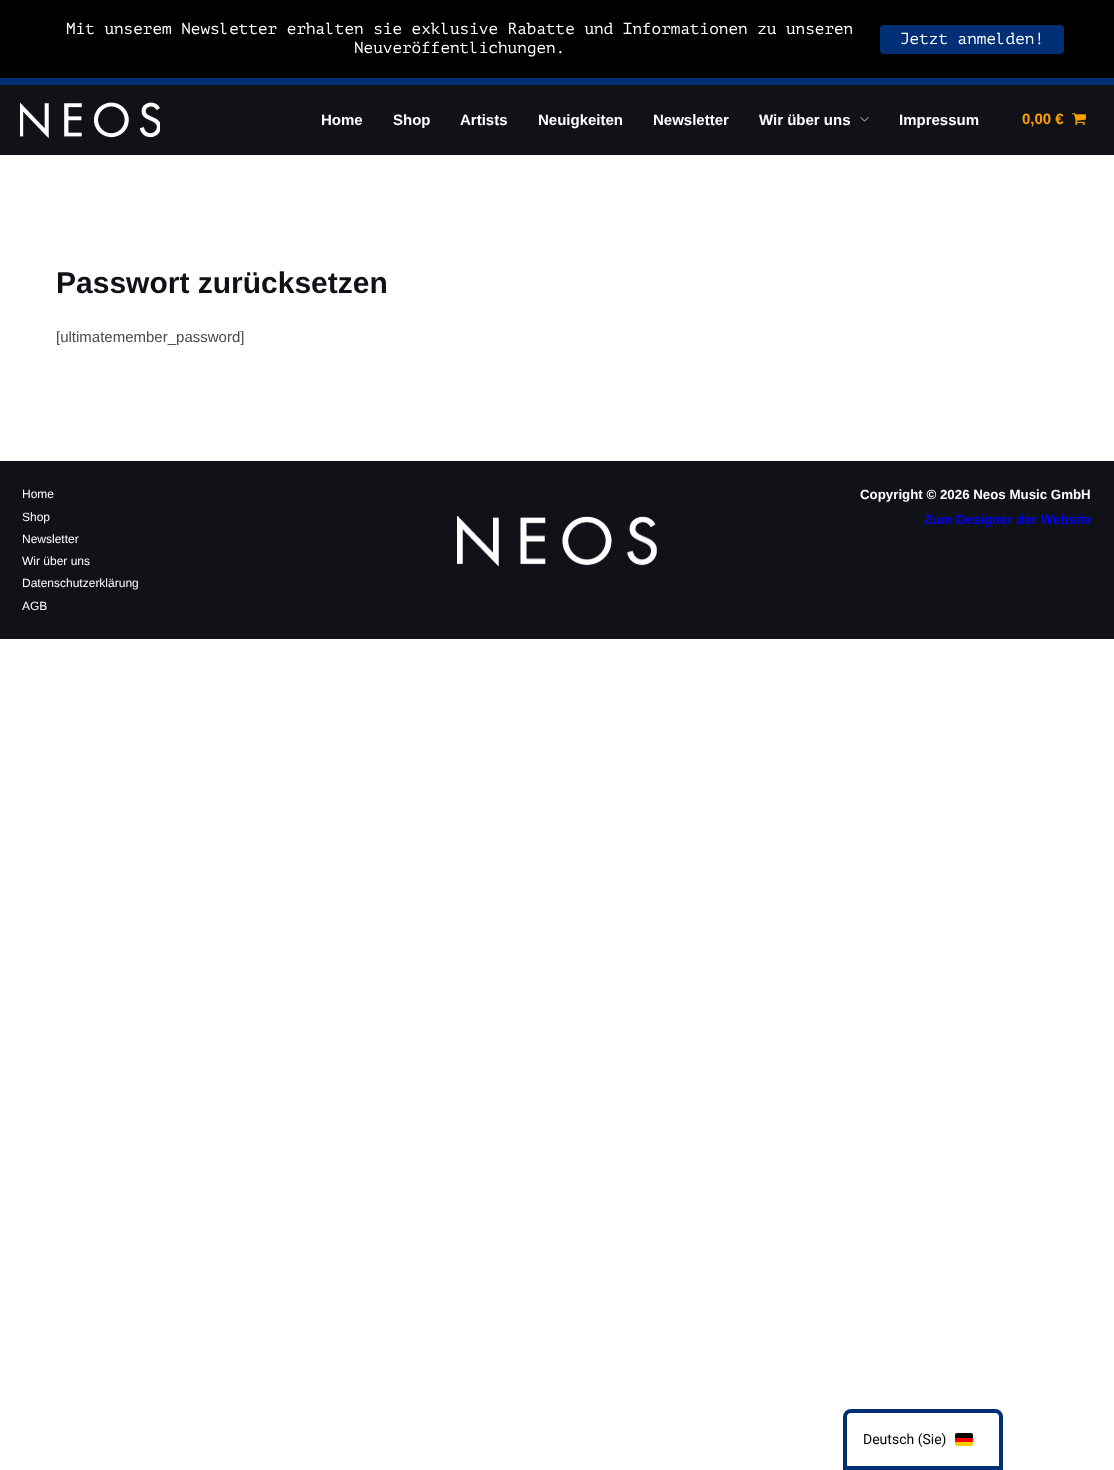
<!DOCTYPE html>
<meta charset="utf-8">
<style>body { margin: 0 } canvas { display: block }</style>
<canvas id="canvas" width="1114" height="1470"></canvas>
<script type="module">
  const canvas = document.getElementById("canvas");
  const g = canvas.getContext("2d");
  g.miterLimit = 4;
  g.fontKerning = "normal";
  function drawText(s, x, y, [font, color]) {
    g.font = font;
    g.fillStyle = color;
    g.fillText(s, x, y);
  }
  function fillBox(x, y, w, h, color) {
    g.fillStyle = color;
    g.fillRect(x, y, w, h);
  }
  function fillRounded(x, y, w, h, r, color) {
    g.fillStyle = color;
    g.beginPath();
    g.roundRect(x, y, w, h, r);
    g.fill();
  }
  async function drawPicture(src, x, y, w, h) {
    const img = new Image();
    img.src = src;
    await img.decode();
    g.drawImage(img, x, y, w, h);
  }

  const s1 = ["16px PT Mono", "#FFFFFF"];
  const s2 = ["bold 15px Liberation Sans", "#FFFFFF"];
  const s3 = ["bold 15px Liberation Sans", "#FFA100"];
  const s4 = ["bold 30px Liberation Sans", "#101218"];
  const s5 = ["15px Liberation Sans", "#494B51"];
  const s6 = ["12px Liberation Sans", "#FFFFFF"];
  const s7 = ["bold 13.3px Liberation Sans", "#FFFFFF"];
  const s8 = ["bold 13.3px Liberation Sans", "#0000FF"];
  const s9 = ["14px Roboto", "#000000"];

  fillBox(0, 0, 1114, 1470, "#FFFFFF");
  fillBox(0, 0, 1114, 78, "#000000");
  drawText("Mit unserem Newsletter erhalten sie exklusive Rabatte und Informationen zu unseren", 66, 34, s1);
  drawText("Neuveröffentlichungen.", 354, 53, s1);
  fillRounded(880, 25, 184, 29, 4, "#002F75");
  drawText("Jetzt anmelden!", 900, 44, s1);
  fillBox(0, 78, 1114, 7, "#002F75");
  fillBox(0, 85, 1114, 70, "#101218");
  await drawPicture("pic1.png", 20, 102, 140, 36);
  drawText("Home", 321, 125, s2);
  drawText("Shop", 393, 125, s2);
  drawText("Artists", 460, 125, s2);
  drawText("Neuigkeiten", 538, 125, s2);
  drawText("Newsletter", 653, 125, s2);
  drawText("Wir über uns", 759, 125, s2);
  await drawPicture("pic2.png", 860, 117, 9, 5);
  drawText("Impressum", 899, 125, s2);
  drawText("0,00 €", 1022, 124, s3);
  await drawPicture("pic3.png", 1072, 113, 14, 12);
  drawText("Passwort zurücksetzen", 56, 293, s4);
  drawText("[ultimatemember_password]", 56, 342, s5);
  fillBox(0, 461, 1114, 178, "#101218");
  drawText("Home", 22, 498, s6);
  drawText("Shop", 22, 521, s6);
  drawText("Newsletter", 22, 543, s6);
  drawText("Wir über uns", 22, 565, s6);
  drawText("Datenschutzerklärung", 22, 587, s6);
  drawText("AGB", 22, 610, s6);
  drawText("Copyright © 2026 Neos Music GmbH", 860, 499, s7);
  drawText("Zum Designer der Website", 924, 524, s8);
  await drawPicture("pic4.png", 457, 516, 200, 50);
  g.beginPath();
  g.roundRect(845, 1411, 156, 57, [6, 6, 0, 0]);
  g.strokeStyle = "#002F75";
  g.lineWidth = 4;
  g.stroke();
  drawText("Deutsch (Sie)", 863, 1444, s9);
  g.fillStyle = "#FFCC00";
  g.beginPath();
  g.roundRect(955, 1442, 18, 4, [0, 0, 2, 2]);
  g.fill();
  g.fillStyle = "#000001";
  g.beginPath();
  g.roundRect(955, 1433, 18, 5, [2, 2, 0, 0]);
  g.fill();
  fillBox(955, 1438, 18, 4, "#FF0000");
</script>
